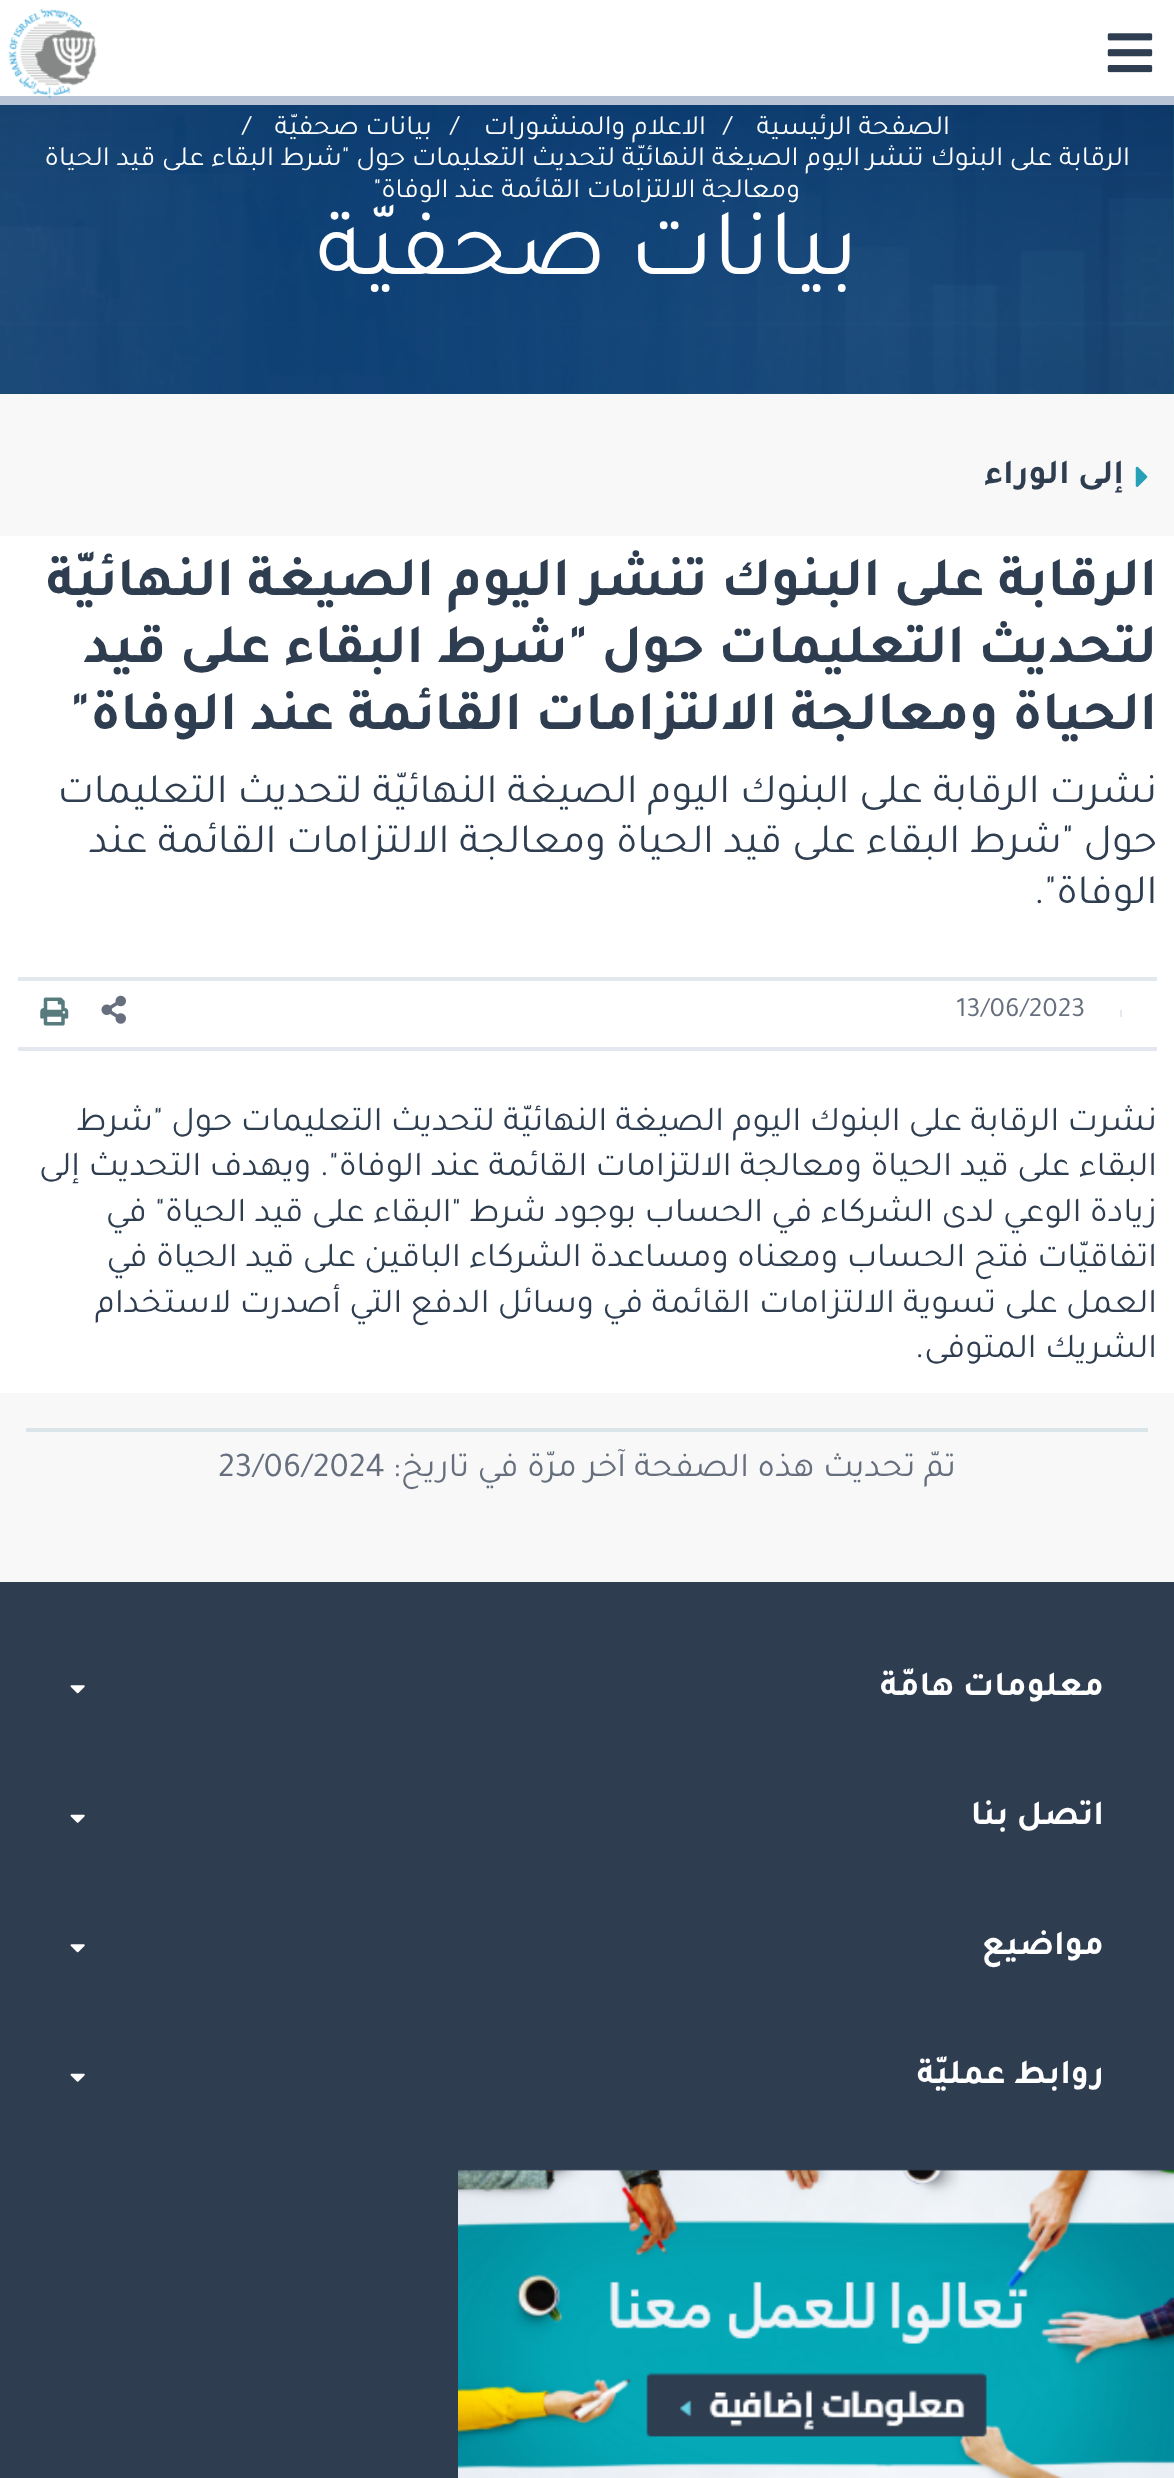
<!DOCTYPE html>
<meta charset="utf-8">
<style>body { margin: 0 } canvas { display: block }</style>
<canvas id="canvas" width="1174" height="2478"></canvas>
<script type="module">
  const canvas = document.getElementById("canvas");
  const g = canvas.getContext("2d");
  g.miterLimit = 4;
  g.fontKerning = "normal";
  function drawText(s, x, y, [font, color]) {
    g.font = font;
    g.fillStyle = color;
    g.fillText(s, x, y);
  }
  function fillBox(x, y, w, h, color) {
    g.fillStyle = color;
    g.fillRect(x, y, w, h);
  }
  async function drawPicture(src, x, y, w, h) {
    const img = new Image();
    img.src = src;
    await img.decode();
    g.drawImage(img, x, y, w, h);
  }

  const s1 = ["28px Tajawal", "#FFFFFF"];
  const s2 = ["96.25px Tajawal", "#FFFFFF"];
  const s3 = ["bold 35px Tajawal", "#2E3D50"];
  const s4 = ["bold 56px Tajawal", "#2E3D50"];
  const s5 = ["42px Tajawal", "#2E3D50"];
  const s6 = ["28px Tajawal", "#676F7E"];
  const s7 = ["35px Tajawal", "#2E3D50"];
  const s8 = ["35px Tajawal", "#676F7E"];
  const s9 = ["bold 35px Tajawal", "#FFFFFF"];

  fillBox(0, 0, 1174, 2478, "#F8F8F8");
  fillBox(0, 0, 1174, 96, "#FFFFFF");
  fillBox(0, 96, 1174, 9, "#B8C4D5");
  await drawPicture("pic1.png", 1107, 33, 46, 40);
  await drawPicture("pic2.png", 8, 8, 89, 91);
  await drawPicture("pic3.png", 0, 105, 1174, 289);
  await drawPicture("pic4.png", 0, 105, 1174, 289);
  g.direction = "rtl";
  drawText("الصفحة الرئيسية", 950, 134, s1);
  g.direction = "ltr";
  drawText("/", 723, 134, s1);
  g.direction = "rtl";
  drawText("الاعلام والمنشورات", 706, 134, s1);
  g.direction = "ltr";
  drawText("/", 450, 134, s1);
  g.direction = "rtl";
  drawText("بيانات صحفيّة", 432, 134, s1);
  g.direction = "ltr";
  drawText("/", 242, 134, s1);
  g.direction = "rtl";
  drawText("الرقابة على البنوك تنشر اليوم الصيغة النهائيّة لتحديث التعليمات حول \"شرط البقاء على قيد الحياة", 1130, 165, s1);
  drawText("ومعالجة الالتزامات القائمة عند الوفاة\"", 800, 197, s1);
  drawText("بيانات صحفيّة", 858, 274, s2);
  await drawPicture("pic5.png", 1135, 466, 13, 21);
  drawText("إلى الوراء", 1124, 483, s3);
  fillBox(0, 536, 1174, 857, "#FFFFFF");
  drawText("الرقابة على البنوك تنشر اليوم الصيغة النهائيّة", 1157, 595, s4);
  drawText("لتحديث التعليمات حول \"شرط البقاء على قيد", 1157, 662, s4);
  drawText("الحياة ومعالجة الالتزامات القائمة عند الوفاة\"", 1157, 729, s4);
  drawText("نشرت الرقابة على البنوك اليوم الصيغة النهائيّة لتحديث التعليمات", 1157, 802, s5);
  drawText("حول \"شرط البقاء على قيد الحياة ومعالجة الالتزامات القائمة عند", 1157, 852, s5);
  drawText("الوفاة\".", 1157, 903, s5);
  fillBox(18, 977, 1139, 4, "#E3E7EE");
  fillBox(18, 1047, 1139, 4, "#E3E7EE");
  fillBox(1120, 1010, 2, 7, "#E3E7EE");
  g.direction = "ltr";
  drawText("13/06/2023", 956, 1016, s6);
  await drawPicture("pic6.png", 101, 995, 25, 29);
  await drawPicture("pic7.png", 40, 997, 29, 29);
  g.direction = "rtl";
  drawText("نشرت الرقابة على البنوك اليوم الصيغة النهائيّة لتحديث التعليمات حول \"شرط", 1157, 1130, s7);
  drawText("البقاء على قيد الحياة ومعالجة الالتزامات القائمة عند الوفاة\". ويهدف التحديث إلى", 1157, 1175, s7);
  drawText("زيادة الوعي لدى الشركاء في الحساب بوجود شرط \"البقاء على قيد الحياة\" في", 1157, 1221, s7);
  drawText("اتفاقيّات فتح الحساب ومعناه ومساعدة الشركاء الباقين على قيد الحياة في", 1157, 1266, s7);
  drawText("العمل على تسوية الالتزامات القائمة في وسائل الدفع التي أصدرت لاستخدام", 1157, 1312, s7);
  drawText("الشريك المتوفى.", 1157, 1357, s7);
  fillBox(26, 1428, 1122, 4, "#D9E5E9");
  drawText("تمّ تحديث هذه الصفحة آخر مرّة في تاريخ:", 956, 1476, s8);
  g.direction = "ltr";
  drawText("23/06/2024", 218, 1476, s8);
  fillBox(0, 1582, 1174, 896, "#2E3D50");
  g.direction = "rtl";
  drawText("معلومات هامّة", 1104, 1695, s9);
  await drawPicture("pic8.png", 70, 1685, 15, 9);
  drawText("اتصل بنا", 1104, 1824, s9);
  await drawPicture("pic9.png", 70, 1814, 15, 9);
  drawText("مواضيع", 1104, 1954, s9);
  await drawPicture("pic8.png", 70, 1944, 15, 9);
  drawText("روابط عمليّة", 1104, 2083, s9);
  await drawPicture("pic9.png", 70, 2073, 15, 9);
  await drawPicture("pic10.png", 458, 2169, 716, 309);
</script>
